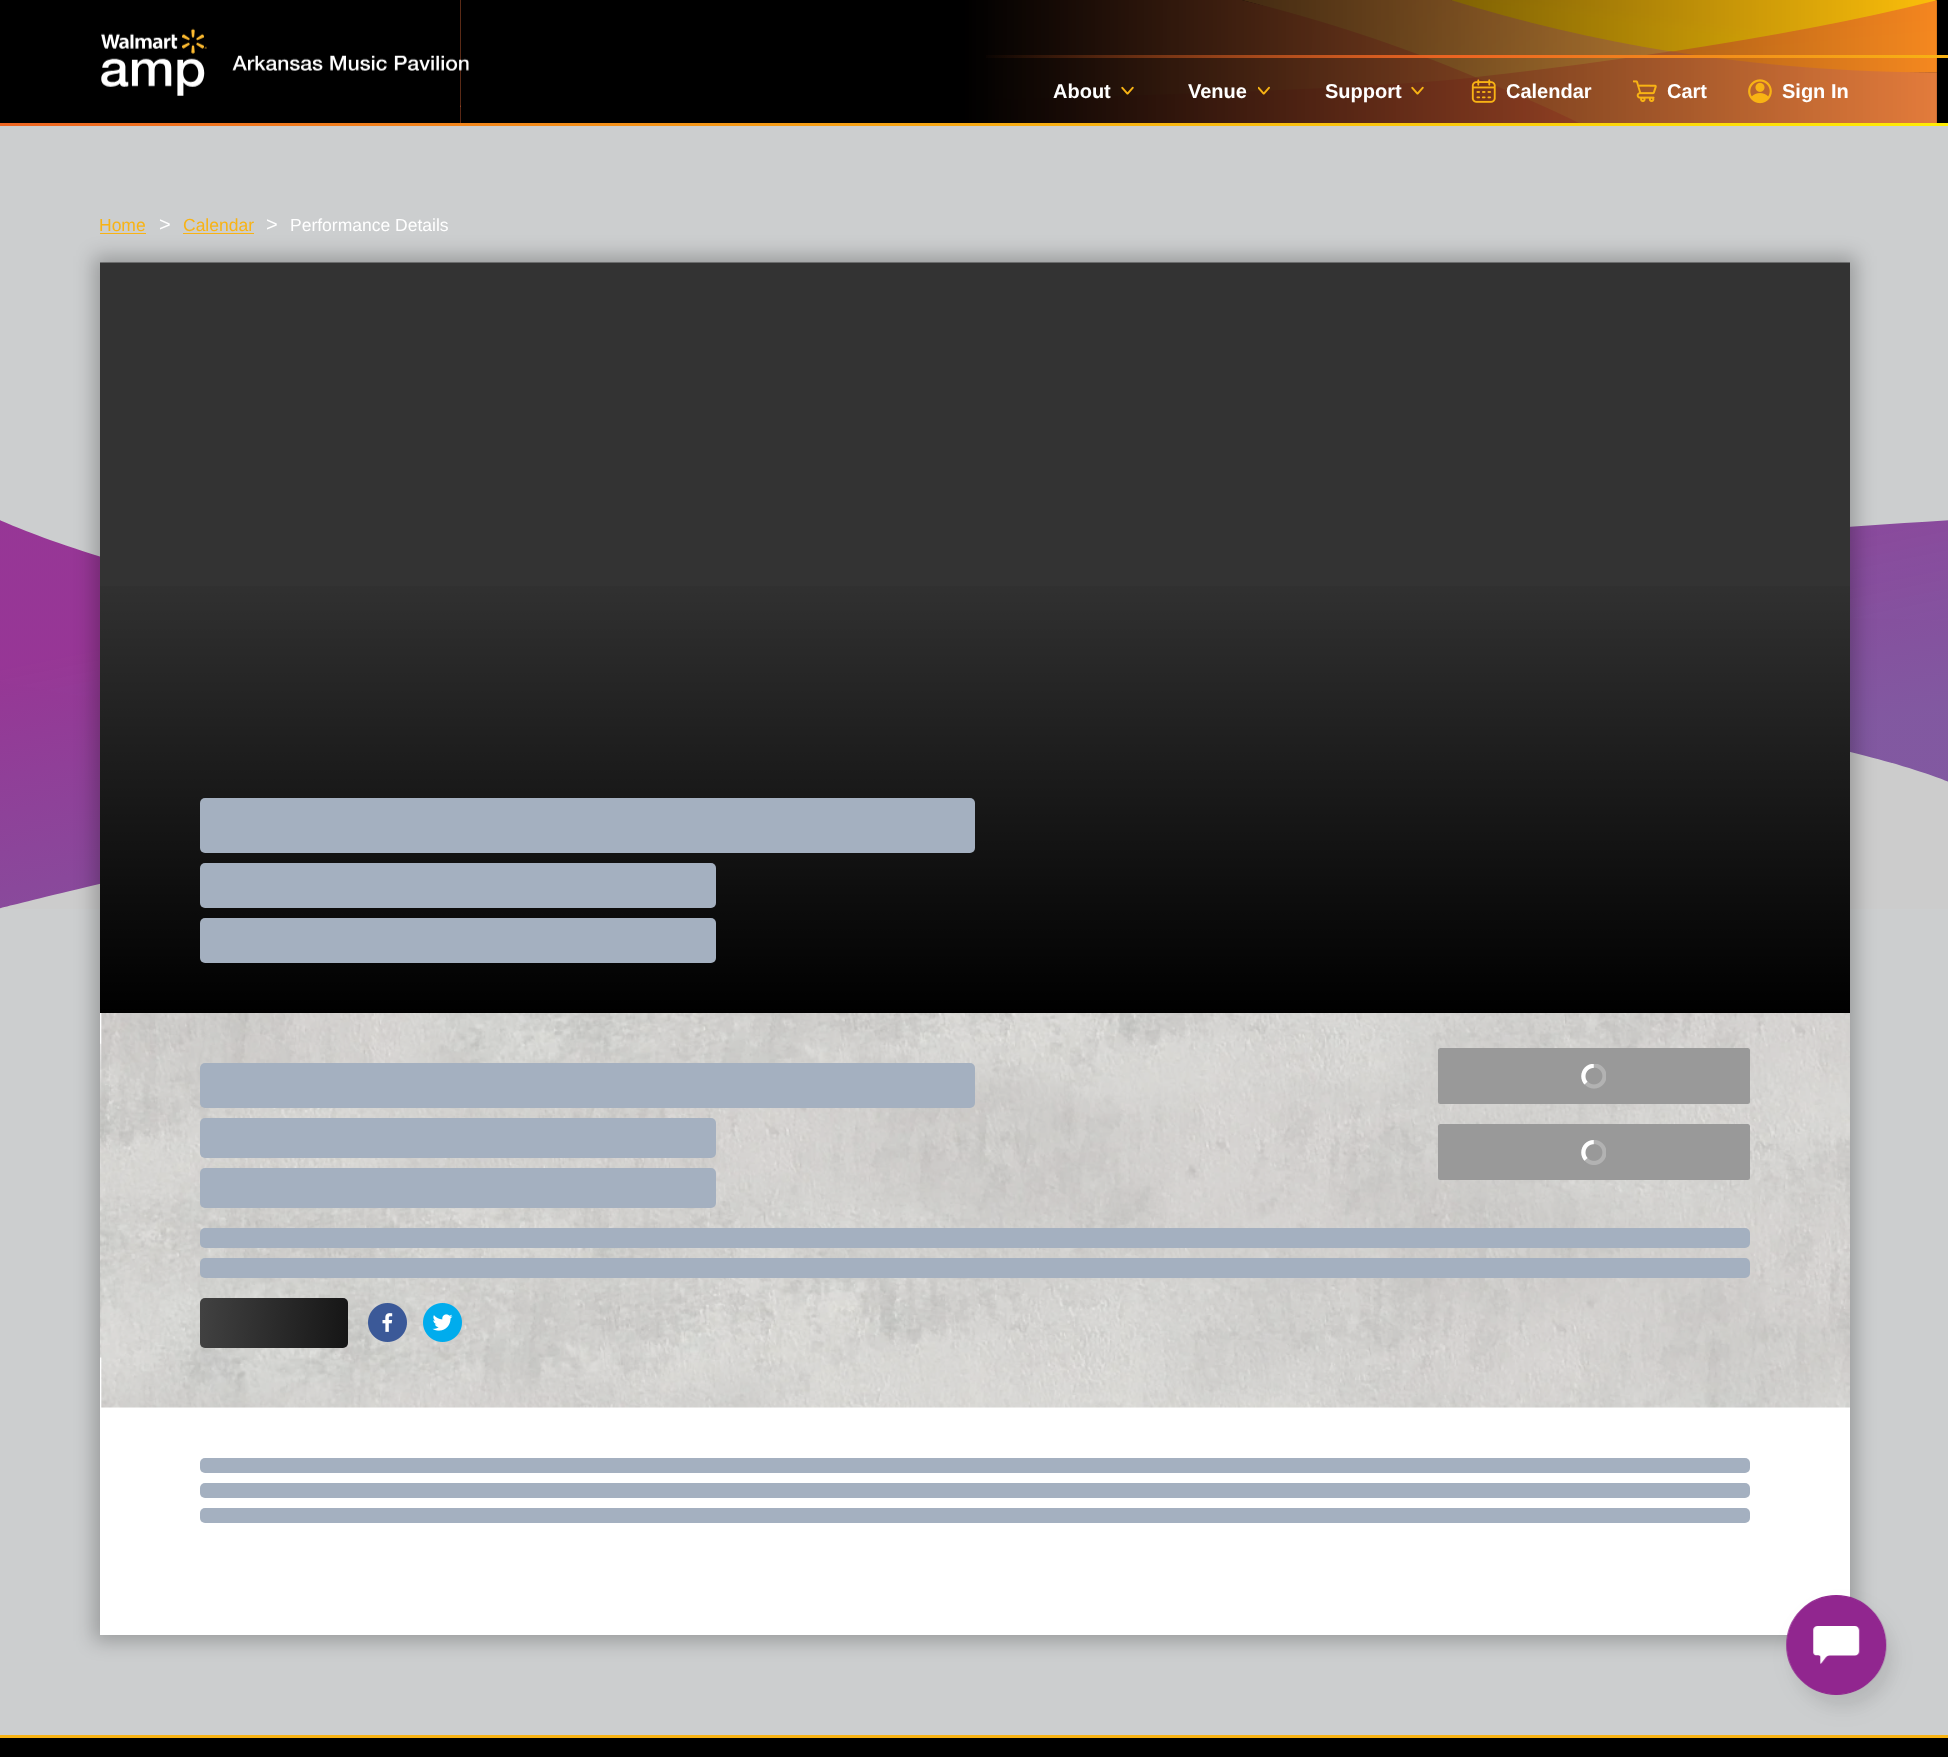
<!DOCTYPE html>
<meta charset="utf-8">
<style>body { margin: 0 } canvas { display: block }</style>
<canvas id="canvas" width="1948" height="1757"></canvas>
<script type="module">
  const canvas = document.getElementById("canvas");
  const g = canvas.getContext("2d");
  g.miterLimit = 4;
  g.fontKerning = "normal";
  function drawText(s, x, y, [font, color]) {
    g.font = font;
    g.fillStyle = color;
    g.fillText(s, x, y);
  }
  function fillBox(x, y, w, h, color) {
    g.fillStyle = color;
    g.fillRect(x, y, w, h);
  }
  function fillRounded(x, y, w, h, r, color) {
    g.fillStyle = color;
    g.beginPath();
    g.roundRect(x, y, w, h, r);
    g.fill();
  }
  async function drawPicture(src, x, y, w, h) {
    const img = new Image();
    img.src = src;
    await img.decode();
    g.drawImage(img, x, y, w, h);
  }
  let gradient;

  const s1 = ["bold 20px Liberation Sans", "#FFFFFF"];
  const s2 = ["17.5px Liberation Sans", "#F8B314"];
  const s3 = ["20px Liberation Sans", "#FFFFFF"];
  const s4 = ["17.5px Liberation Sans", "#FFFFFF"];

  fillBox(0, 0, 1948, 1757, "#000000");
  await drawPicture("pic1.png", 460, 0, 1477, 123);
  await drawPicture("pic2.png", 101, 28, 368, 68);
  gradient = g.createLinearGradient(975, 56, 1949, 56);
  gradient.addColorStop(0, "rgba(237, 101, 34, 0)");
  gradient.addColorStop(0.5, "#ED6522");
  gradient.addColorStop(1, "#F8B314");
  g.fillStyle = gradient;
  g.fillRect(986, 55, 962, 3);
  drawText("About", 1053, 98, s1);
  await drawPicture("pic3.png", 1121, 86, 13, 9);
  drawText("Venue", 1188, 98, s1);
  await drawPicture("pic4.png", 1258, 86, 12, 9);
  drawText("Support", 1325, 98, s1);
  await drawPicture("pic5.png", 1411, 86, 13, 9);
  await drawPicture("pic6.png", 1471, 79, 25, 24);
  drawText("Calendar", 1506, 98, s1);
  await drawPicture("pic7.png", 1633, 80, 24, 23);
  drawText("Cart", 1667, 98, s1);
  await drawPicture("pic8.png", 1748, 79, 24, 25);
  drawText("Sign In", 1782, 98, s1);
  gradient = g.createLinearGradient(0, 124, 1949, 124);
  gradient.addColorStop(0, "#ED6522");
  gradient.addColorStop(1, "#FFED04");
  g.fillStyle = gradient;
  g.fillRect(0, 123, 1948, 3);
  fillBox(0, 126, 1948, 1609, "#CCCECF");
  await drawPicture("pic9.png", 0, 520, 1948, 389);
  g.fillStyle = "rgba(0, 0, 0, 0.25)";
  g.filter = "blur(9.5px)";
  g.beginPath();
  g.rect(94, 256, 1762, 1385);
  g.fill();
  g.filter = "none";
  drawText("Home", 99, 231, s2);
  fillBox(100, 233, 46, 1, "#F8B314");
  drawText(">", 159, 231, s3);
  drawText("Calendar", 183, 231, s2);
  fillBox(183, 233, 71, 1, "#F8B314");
  drawText(">", 266, 231, s3);
  drawText("Performance Details", 290, 231, s4);
  fillBox(100, 1013, 1750, 622, "#FFFFFF");
  fillBox(100, 263, 1750, 747, "#333333");
  fillBox(100, 262, 1750, 1, "rgba(50, 50, 50, 0.5)");
  gradient = g.createLinearGradient(974, 1013, 974, 262);
  gradient.addColorStop(0, "#000000");
  gradient.addColorStop(0.6, "rgba(0, 0, 0, 0)");
  g.fillStyle = gradient;
  g.fillRect(100, 586, 1750, 427);
  fillRounded(200, 798, 775, 55, 5, "#A4B0C0");
  fillRounded(200, 863, 516, 45, 5, "#A4B0C0");
  fillRounded(200, 918, 516, 45, 5, "#A4B0C0");
  await drawPicture("pic10.png", 100, 1013, 1750, 395);
  fillRounded(200, 1063, 775, 45, 5, "#A4B0C0");
  fillRounded(1438, 1048, 312, 56, 2.5, "#999999");
  await drawPicture("pic11.png", 1581, 1064, 25, 25);
  fillRounded(1438, 1124, 312, 56, 2.5, "#999999");
  await drawPicture("pic12.png", 1581, 1140, 25, 25);
  fillRounded(200, 1118, 516, 40, 5, "#A4B0C0");
  fillRounded(200, 1168, 516, 40, 5, "#A4B0C0");
  fillRounded(200, 1228, 1550, 20, 5, "#A4B0C0");
  fillRounded(200, 1258, 1550, 20, 5, "#A4B0C0");
  gradient = g.createLinearGradient(199, 1319, 349, 1326);
  gradient.addColorStop(0.01, "#414141");
  gradient.addColorStop(0.99, "#161616");
  g.fillStyle = gradient;
  g.beginPath();
  g.roundRect(200, 1298, 148, 50, 5);
  g.fill();
  await drawPicture("pic13.png", 368, 1303, 39, 39);
  await drawPicture("pic14.png", 423, 1303, 39, 39);
  fillRounded(200, 1458, 1550, 15, 5, "#A4B0C0");
  fillRounded(200, 1483, 1550, 15, 5, "#A4B0C0");
  fillRounded(200, 1508, 1550, 15, 5, "#A4B0C0");
  fillBox(0, 1735, 1948, 3, "#F8B314");
  g.fillStyle = "rgba(0, 0, 0, 0.05)";
  g.filter = "blur(6px)";
  g.beginPath();
  g.roundRect(1793, 1608, 100, 100, 50);
  g.fill();
  g.filter = "none";
  g.filter = "blur(12.5px)";
  g.beginPath();
  g.roundRect(1793, 1608, 100, 100, 50);
  g.fill();
  g.filter = "none";
  await drawPicture("pic15.png", 1786, 1595, 101, 100);
</script>
